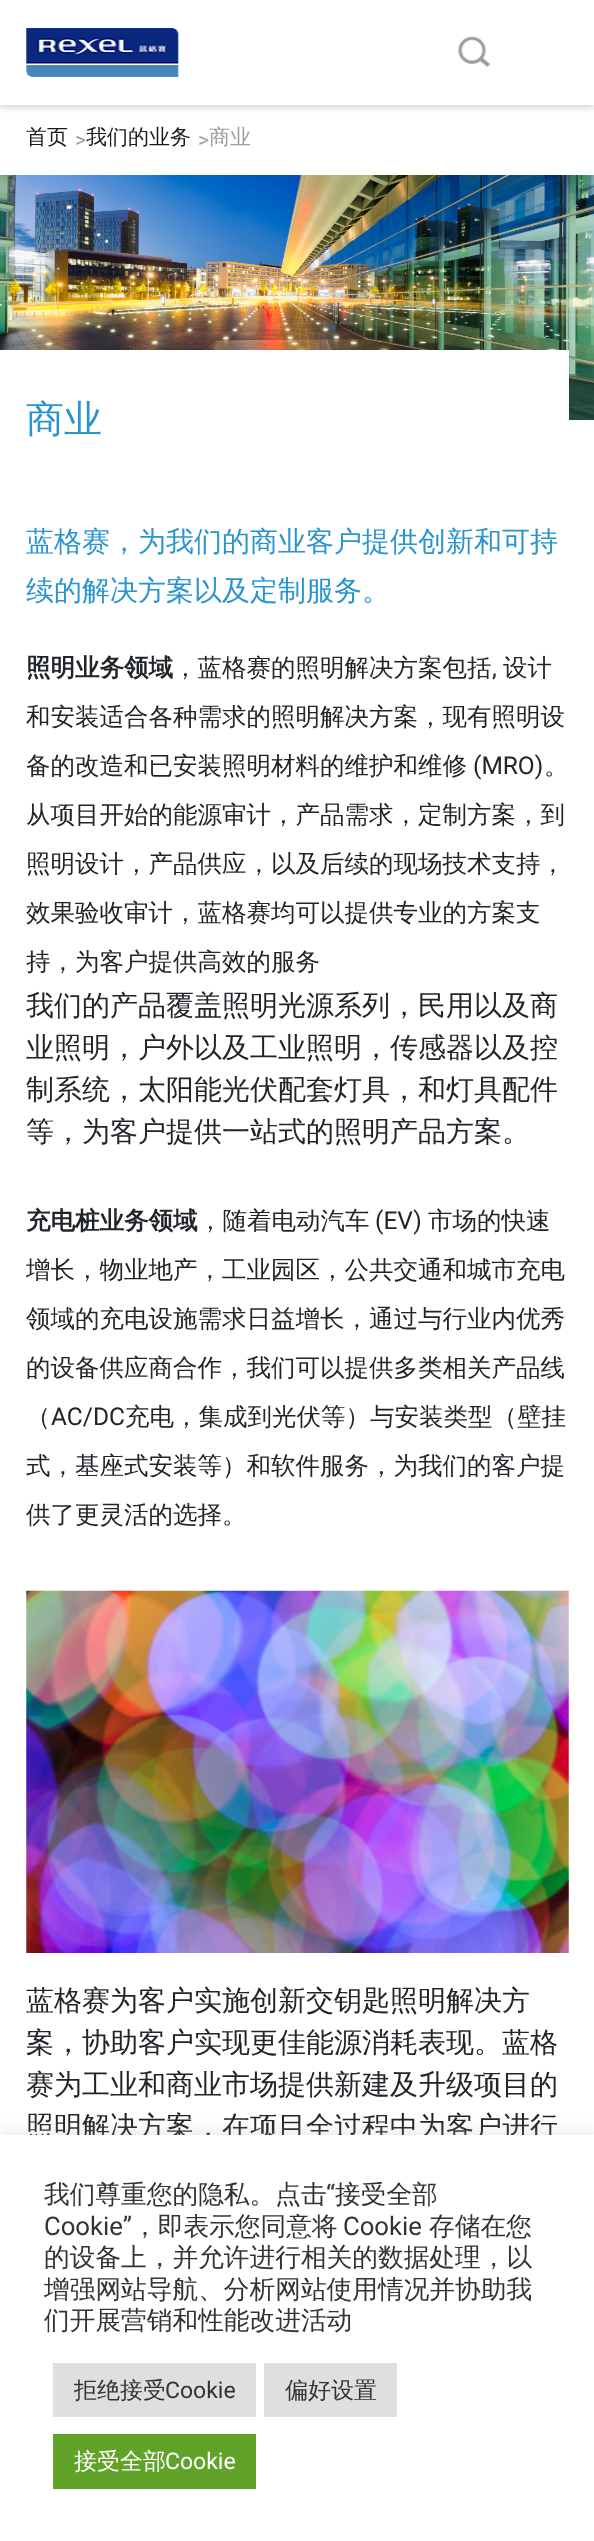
<!DOCTYPE html>
<meta charset="utf-8">
<style>body { margin: 0 } canvas { display: block }</style>
<canvas id="canvas" width="594" height="2541"></canvas>
<script type="module">
  const canvas = document.getElementById("canvas");
  const g = canvas.getContext("2d");
  g.miterLimit = 4;
  g.fontKerning = "normal";
  function drawText(s, x, y, [font, color]) {
    g.font = font;
    g.fillStyle = color;
    g.fillText(s, x, y);
  }
  function fillBox(x, y, w, h, color) {
    g.fillStyle = color;
    g.fillRect(x, y, w, h);
  }
  async function drawPicture(src, x, y, w, h) {
    const img = new Image();
    img.src = src;
    await img.decode();
    g.drawImage(img, x, y, w, h);
  }

  const s1 = ["500 21px WenQuanYi Zen Hei", "#1A1A1A"];
  const s2 = ["21px Roboto", "#9F9C97"];
  const s3 = ["500 21px WenQuanYi Zen Hei", "#9F9C97"];
  const s4 = ["500 38px WenQuanYi Zen Hei", "#2995CE"];
  const s5 = ["500 28px WenQuanYi Zen Hei", "#2995CE"];
  const s6 = ["bold 24.5px WenQuanYi Zen Hei", "#212529"];
  const s7 = ["500 24.5px WenQuanYi Zen Hei", "#212529"];
  const s8 = ["24.5px Roboto", "#212529"];
  const s9 = ["500 28px WenQuanYi Zen Hei", "#212529"];
  const s10 = ["500 25.7px WenQuanYi Zen Hei", "#333333"];
  const s11 = ["25.7px Roboto", "#333333"];
  const s12 = ["500 23px WenQuanYi Zen Hei", "#333333"];
  const s13 = ["23px Roboto", "#333333"];
  const s14 = ["500 23px WenQuanYi Zen Hei", "#FFFFFF"];
  const s15 = ["23px Roboto", "#FFFFFF"];

  fillBox(0, 0, 594, 2541, "#FFFFFF");
  g.save();
  g.beginPath();
  g.rect(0, 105, 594, 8);
  g.clip();
  g.fillStyle = "rgba(0, 0, 0, 0.2)";
  g.filter = "blur(4.5px)";
  g.beginPath();
  g.rect(0, 2, 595, 105);
  g.fill();
  g.filter = "none";
  g.restore();
  await drawPicture("pic1.png", 26, 28, 153, 49);
  await drawPicture("pic2.png", 458, 36, 33, 32);
  drawText("首页", 26, 144, s1);
  drawText(">", 75, 147, s2);
  drawText("我们的业务", 86, 144, s1);
  drawText(">", 198, 147, s2);
  drawText("商业", 209, 144, s3);
  await drawPicture("pic3.png", 0, 175, 594, 245);
  fillBox(0, 350, 569, 70, "#FFFFFF");
  drawText("商业", 26, 432, s4);
  drawText("蓝格赛，为我们的商业客户提供创新和可持", 26, 551, s5);
  drawText("续的解决方案以及定制服务。", 26, 600, s5);
  drawText("照明业务领域", 26, 676, s6);
  drawText("，蓝格赛的照明解决方案包括", 173, 676, s7);
  drawText(",", 492, 676, s8);
  drawText("设计", 503, 676, s7);
  drawText("和安装适合各种需求的照明解决方案，现有照明设", 26, 725, s7);
  drawText("备的改造和已安装照明材料的维护和维修", 26, 774, s7);
  drawText("(MRO)", 473, 774, s8);
  drawText("。", 544, 774, s7);
  drawText("从项目开始的能源审计，产品需求，定制方案，到", 26, 823, s7);
  drawText("照明设计，产品供应，以及后续的现场技术支持，", 26, 872, s7);
  drawText("效果验收审计，蓝格赛均可以提供专业的方案支", 26, 921, s7);
  drawText("持，为客户提供高效的服务", 26, 970, s7);
  drawText("我们的产品覆盖照明光源系列，民用以及商", 26, 1015, s9);
  drawText("业照明，户外以及工业照明，传感器以及控", 26, 1057, s9);
  drawText("制系统，太阳能光伏配套灯具，和灯具配件", 26, 1099, s9);
  drawText("等，为客户提供一站式的照明产品方案。", 26, 1141, s9);
  drawText("充电桩业务领域", 26, 1229, s6);
  drawText("，随着电动汽车", 198, 1229, s7);
  drawText("(EV)", 375, 1229, s8);
  drawText("市场的快速", 428, 1229, s7);
  drawText("增长，物业地产，工业园区，公共交通和城市充电", 26, 1278, s7);
  drawText("领域的充电设施需求日益增长，通过与行业内优秀", 26, 1327, s7);
  drawText("的设备供应商合作，我们可以提供多类相关产品线", 26, 1376, s7);
  drawText("（", 26, 1425, s7);
  drawText("AC/DC", 51, 1425, s8);
  drawText("充电，集成到光伏等）与安装类型（壁挂", 125, 1425, s7);
  drawText("式，基座式安装等）和软件服务，为我们的客户提", 26, 1474, s7);
  drawText("供了更灵活的选择。", 26, 1523, s7);
  await drawPicture("pic4.png", 26, 1590, 543, 363);
  drawText("蓝格赛为客户实施创新交钥匙照明解决方", 26, 2010, s9);
  drawText("案，协助客户实现更佳能源消耗表现。蓝格", 26, 2052, s9);
  drawText("赛为工业和商业市场提供新建及升级项目的", 26, 2094, s9);
  drawText("照明解决方案，在项目全过程中为客户进行", 26, 2136, s9);
  g.fillStyle = "rgba(172, 171, 171, 0.3)";
  g.filter = "blur(9px)";
  g.beginPath();
  g.rect(0, 2133, 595, 406);
  g.fill();
  g.filter = "none";
  fillBox(0, 2135, 594, 406, "#FFFFFF");
  drawText("我们尊重您的隐私。点击", 44, 2203, s10);
  drawText("“", 326, 2203, s11);
  drawText("接受全部", 335, 2203, s10);
  drawText("Cookie”", 44, 2235, s11);
  drawText("，即表示您同意将", 132, 2235, s10);
  drawText("Cookie", 343, 2235, s11);
  drawText("存储在您", 429, 2235, s10);
  drawText("的设备上，并允许进行相关的数据处理，以", 44, 2266, s10);
  drawText("增强网站导航、分析网站使用情况并协助我", 44, 2298, s10);
  drawText("们开展营销和性能改进活动", 44, 2329, s10);
  fillBox(53, 2363, 203, 54, "#DEDFE0");
  drawText("拒绝接受", 74, 2398, s12);
  drawText("Cookie", 165, 2398, s13);
  fillBox(264, 2363, 133, 54, "#DEDFE0");
  drawText("偏好设置", 285, 2398, s12);
  fillBox(53, 2434, 203, 55, "#61A229");
  drawText("接受全部", 74, 2469, s14);
  drawText("Cookie", 165, 2469, s15);
</script>
